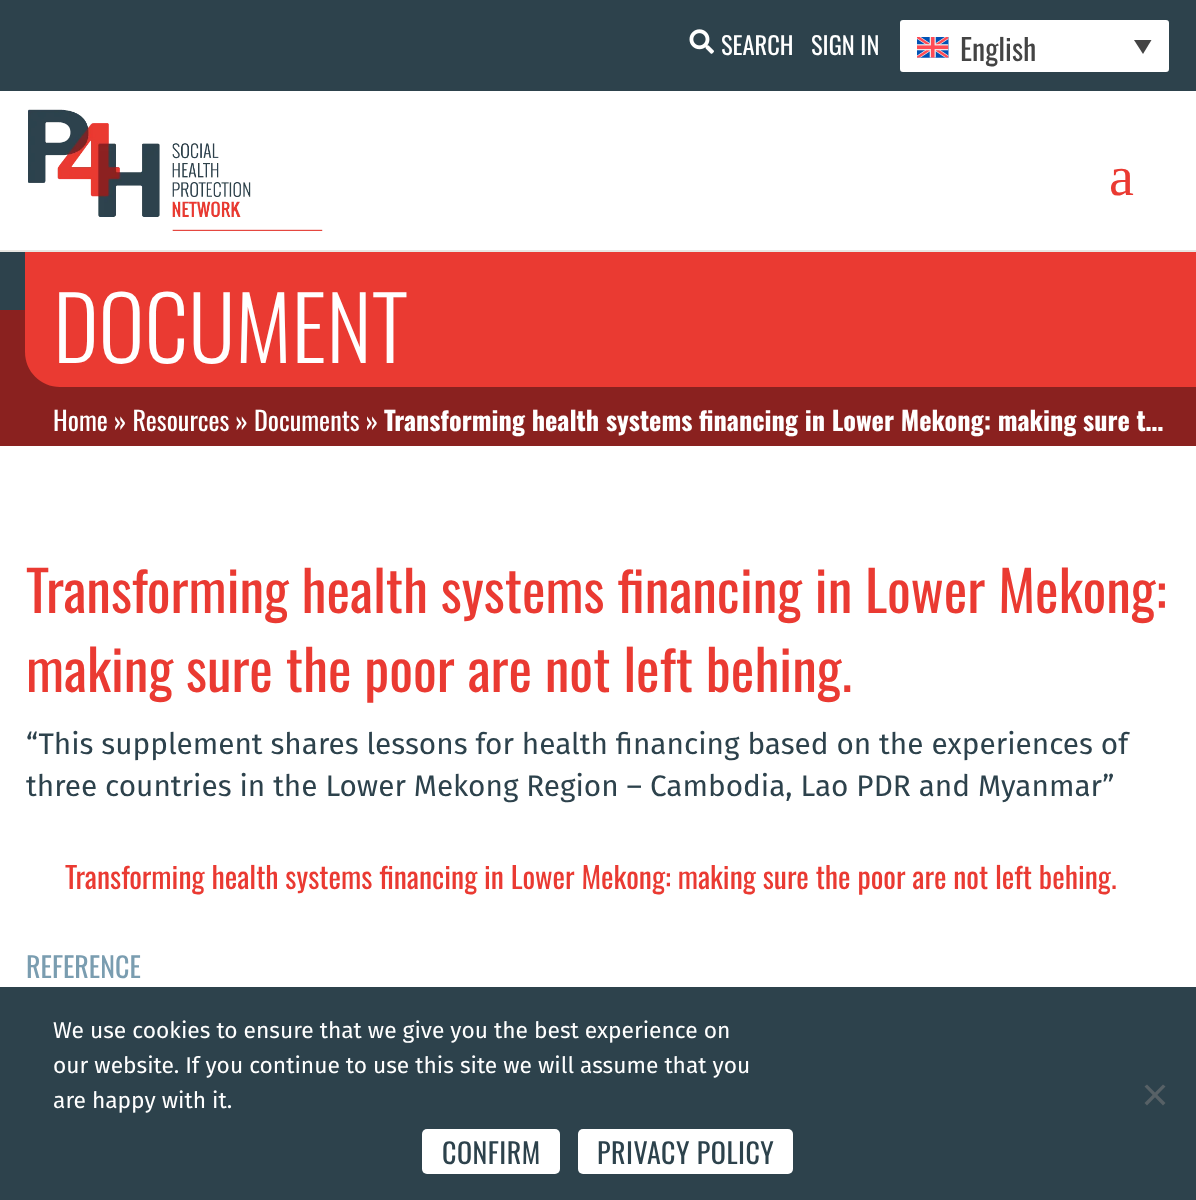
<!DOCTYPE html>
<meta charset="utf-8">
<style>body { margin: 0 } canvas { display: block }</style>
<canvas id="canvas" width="1196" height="1200"></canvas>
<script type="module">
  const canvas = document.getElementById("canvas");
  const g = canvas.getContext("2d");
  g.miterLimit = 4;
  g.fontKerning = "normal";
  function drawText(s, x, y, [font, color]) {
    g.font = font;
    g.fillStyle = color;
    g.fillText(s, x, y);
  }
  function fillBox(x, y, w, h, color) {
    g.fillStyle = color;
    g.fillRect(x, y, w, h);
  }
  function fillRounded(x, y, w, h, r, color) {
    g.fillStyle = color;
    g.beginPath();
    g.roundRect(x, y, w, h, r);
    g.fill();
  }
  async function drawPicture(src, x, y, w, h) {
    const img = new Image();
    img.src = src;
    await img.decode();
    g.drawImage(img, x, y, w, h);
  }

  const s1 = ["24.5px Oswald", "#FFFFFF"];
  const s2 = ["29.75px Oswald", "#444444"];
  const s3 = ["56px Liberation Serif", "#EA3A32"];
  const s4 = ["300 87.5px Oswald", "#FFFFFF"];
  const s5 = ["26.25px Oswald", "#FFFFFF"];
  const s6 = ["bold 26.25px Oswald", "#FFFFFF"];
  const s7 = ["56px Oswald", "#EA3A32"];
  const s8 = ["29.75px Fira Sans", "#2D424C"];
  const s9 = ["29.75px Oswald", "#EA3A32"];
  const s10 = ["28px Oswald", "#7A9DB0"];
  const s11 = ["22.75px Fira Sans", "#FFFFFF"];
  const s12 = ["28px Oswald", "#2D424C"];

  fillBox(0, 0, 1196, 1200, "#FFFFFF");
  fillBox(0, 0, 1196, 91, "#2D424C");
  await drawPicture("pic1.png", 689, 29, 25, 25);
  drawText("SEARCH", 721, 55, s1);
  drawText("SIGN IN", 811, 55, s1);
  g.beginPath();
  g.roundRect(899, 19, 271, 54, 4);
  g.fill();
  g.strokeStyle = "#2D424C";
  g.lineWidth = 2;
  g.stroke();
  await drawPicture("pic2.png", 917, 37, 32, 21);
  drawText("English", 960, 61, s2);
  g.beginPath();
  g.moveTo(1134, 40);
  g.lineTo(1151.5, 40);
  g.lineTo(1143, 54);
  g.closePath();
  g.fill();
  fillBox(0, 250, 1196, 2, "#E8E7E2");
  await drawPicture("pic3.png", 28, 109, 295, 122);
  drawText("a", 1109, 195, s3);
  fillBox(0, 252, 25, 58, "#2D424C");
  fillBox(0, 310, 1196, 136, "#8A211F");
  g.fillStyle = "#EA3A32";
  g.beginPath();
  g.moveTo(25, 252);
  g.lineTo(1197, 252);
  g.lineTo(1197, 387);
  g.lineTo(60, 387);
  g.bezierCurveTo(40.5, 387, 25, 371.5, 25, 352);
  g.closePath();
  g.fill();
  drawText("DOCUMENT", 53, 363, s4);
  drawText("Home » Resources » Documents »", 53, 431, s5);
  drawText("Transforming health systems financing in Lower Mekong: making sure t…", 384, 431, s6);
  drawText("Transforming health systems financing in Lower Mekong:", 26, 613, s7);
  drawText("making sure the poor are not left behing.", 26, 692, s7);
  drawText("“This supplement shares lessons for health financing based on the experiences of", 26, 754, s8);
  drawText("three countries in the Lower Mekong Region – Cambodia, Lao PDR and Myanmar”", 26, 796, s8);
  drawText("Transforming health systems financing in Lower Mekong: making sure the poor are not left behing.", 65, 889, s9);
  drawText("REFERENCE", 26, 978, s10);
  fillBox(0, 987, 1196, 213, "#2D424C");
  drawText("We use cookies to ensure that we give you the best experience on", 53, 1038, s11);
  drawText("our website. If you continue to use this site we will assume that you", 53, 1073, s11);
  drawText("are happy with it.", 53, 1108, s11);
  g.fillStyle = "#576166";
  g.beginPath();
  g.moveTo(1163, 1084.5);
  g.lineTo(1165.5, 1086.5);
  g.lineTo(1147, 1105.5);
  g.lineTo(1144.5, 1103);
  g.closePath();
  g.fill();
  g.beginPath();
  g.moveTo(1144.5, 1086.5);
  g.lineTo(1147, 1084.5);
  g.lineTo(1165.5, 1103);
  g.lineTo(1163, 1105.5);
  g.closePath();
  g.fill();
  fillRounded(422, 1129, 138, 45, 5, "#FFFFFF");
  g.letterSpacing = "0.5px";
  drawText("CONFIRM", 442, 1164, s12);
  fillRounded(578, 1129, 215, 45, 5, "#FFFFFF");
  drawText("PRIVACY POLICY", 597, 1164, s12);
</script>
